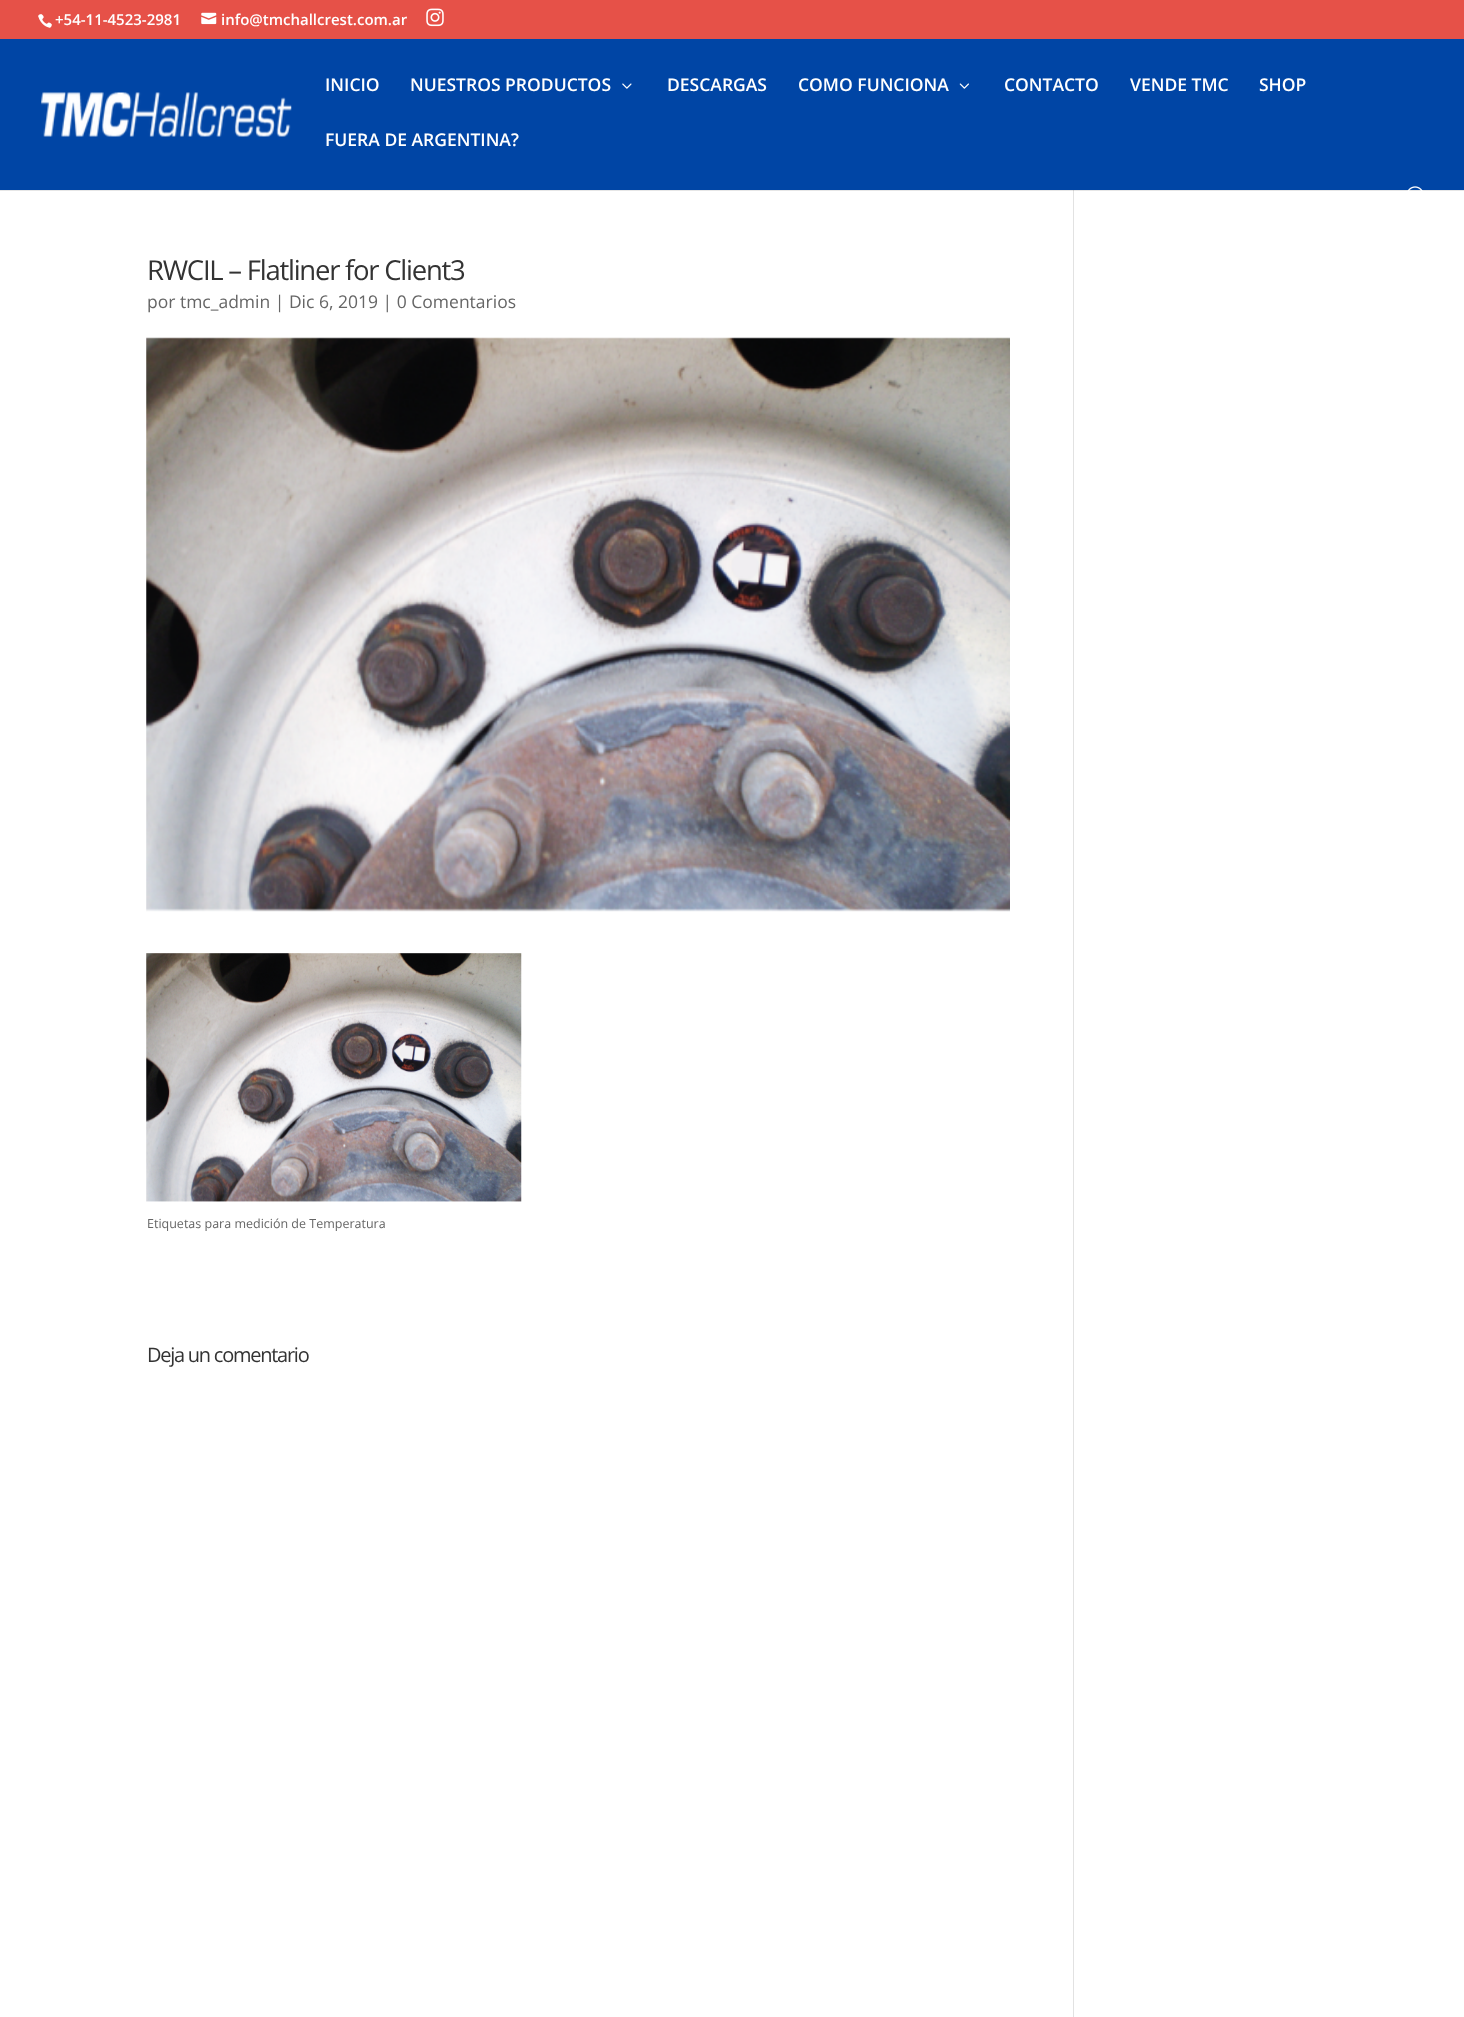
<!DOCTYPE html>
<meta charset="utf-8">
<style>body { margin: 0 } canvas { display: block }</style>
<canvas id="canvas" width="1464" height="2017"></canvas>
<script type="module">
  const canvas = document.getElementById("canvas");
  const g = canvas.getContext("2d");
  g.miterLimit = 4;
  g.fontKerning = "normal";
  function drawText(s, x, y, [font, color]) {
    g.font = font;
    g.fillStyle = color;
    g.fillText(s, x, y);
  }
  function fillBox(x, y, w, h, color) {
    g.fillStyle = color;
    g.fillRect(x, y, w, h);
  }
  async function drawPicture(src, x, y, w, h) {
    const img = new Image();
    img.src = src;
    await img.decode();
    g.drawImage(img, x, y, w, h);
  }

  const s1 = ["600 15px Open Sans", "#FFFFFF"];
  const s2 = ["600 17.5px Open Sans", "#FFFFFF"];
  const s3 = ["27.5px Open Sans", "#333333"];
  const s4 = ["17.5px Open Sans", "#666666"];
  const s5 = ["12.5px Open Sans", "#666666"];
  const s6 = ["20px Open Sans", "#333333"];

  fillBox(0, 0, 1464, 2017, "#FFFFFF");
  fillBox(0, 190, 1464, 1, "#E6E6E6");
  fillBox(0, 0, 1464, 39, "#E65148");
  await drawPicture("pic1.png", 38, 14, 14, 14);
  drawText("+54-11-4523-2981", 55, 25, s1);
  await drawPicture("pic2.png", 201, 12, 16, 13);
  drawText("info@tmchallcrest.com.ar", 221, 25, s1);
  await drawPicture("pic3.png", 426, 8, 18, 19);
  fillBox(1073, 185, 1, 1832, "#E2E2E2");
  fillBox(0, 39, 1464, 151, "#0045A5");
  await drawPicture("pic4.png", 41, 92, 251, 45);
  drawText("INICIO", 325, 91, s2);
  drawText("NUESTROS PRODUCTOS", 410, 91, s2);
  await drawPicture("pic5.png", 622, 83, 10, 6);
  drawText("DESCARGAS", 667, 91, s2);
  drawText("COMO FUNCIONA", 798, 91, s2);
  await drawPicture("pic6.png", 959, 83, 10, 6);
  drawText("CONTACTO", 1004, 91, s2);
  drawText("VENDE TMC", 1130, 91, s2);
  drawText("SHOP", 1259, 91, s2);
  drawText("FUERA DE ARGENTINA?", 325, 146, s2);
  await drawPicture("pic7.png", 1407, 186, 16, 5);
  g.letterSpacing = "-1.25px";
  drawText("RWCIL – Flatliner for Client3", 147, 280, s3);
  g.letterSpacing = "0px";
  drawText("por tmc_admin | Dic 6, 2019 | 0 Comentarios", 147, 308, s4);
  await drawPicture("pic8.png", 146, 337, 864, 575);
  await drawPicture("pic9.png", 146, 953, 376, 249);
  drawText("Etiquetas para medición de Temperatura", 147, 1228, s5);
  g.letterSpacing = "-1.25px";
  drawText("Deja un comentario", 147, 1362, s6);
  fillBox(1073, 190, 1, 1, "#CBCBCB");
</script>
